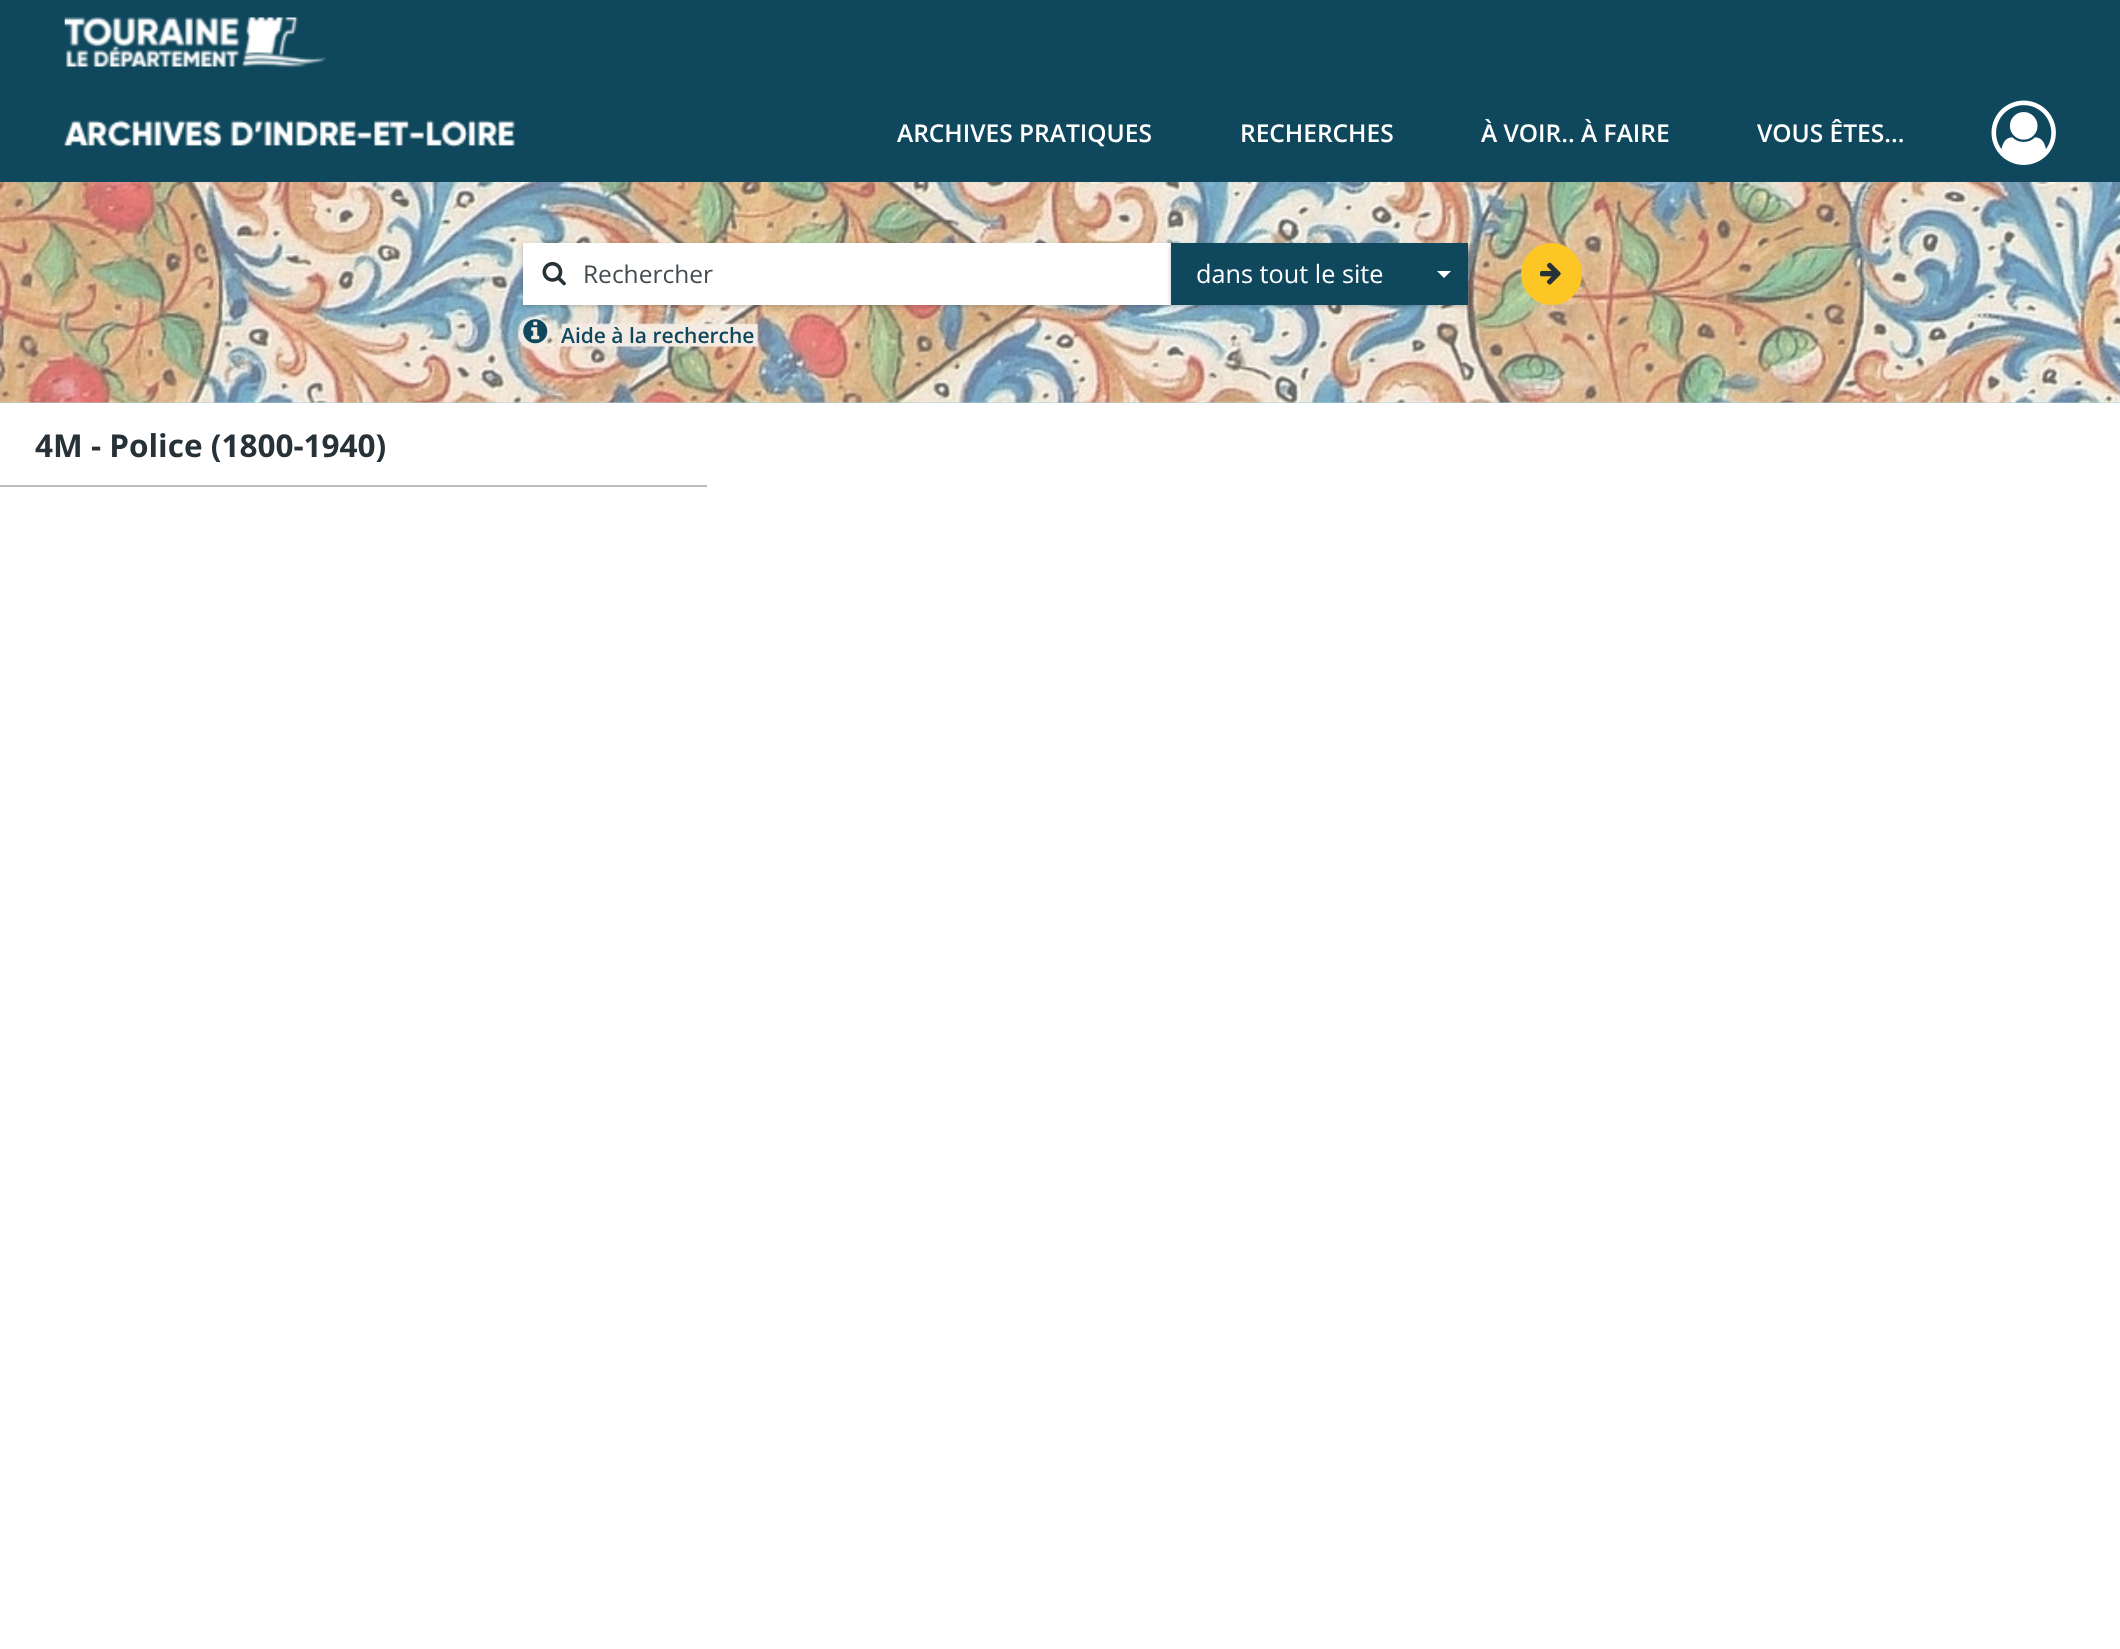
<!DOCTYPE html>
<meta charset="utf-8">
<style>body { margin: 0 } canvas { display: block }</style>
<canvas id="canvas" width="2120" height="1649"></canvas>
<script type="module">
  const canvas = document.getElementById("canvas");
  const g = canvas.getContext("2d");
  g.miterLimit = 4;
  g.fontKerning = "normal";
  function drawText(s, x, y, [font, color]) {
    g.font = font;
    g.fillStyle = color;
    g.fillText(s, x, y);
  }
  function fillBox(x, y, w, h, color) {
    g.fillStyle = color;
    g.fillRect(x, y, w, h);
  }
  function fillRounded(x, y, w, h, r, color) {
    g.fillStyle = color;
    g.beginPath();
    g.roundRect(x, y, w, h, r);
    g.fill();
  }
  async function drawPicture(src, x, y, w, h) {
    const img = new Image();
    img.src = src;
    await img.decode();
    g.drawImage(img, x, y, w, h);
  }

  const s1 = ["600 24.5px Open Sans", "#FFFFFF"];
  const s2 = ["24.5px Open Sans", "#424B4F"];
  const s3 = ["25.25px Open Sans", "#FFFFFF"];
  const s4 = ["600 21px Open Sans", "#0F485D"];
  const s5 = ["bold 31.5px Open Sans", "#263238"];

  fillBox(0, 0, 2120, 1649, "#FFFFFF");
  fillBox(0, 0, 2120, 182, "#0F485D");
  await drawPicture("pic1.png", 64, 17, 262, 50);
  await drawPicture("pic2.png", 64, 120, 451, 27);
  drawText("ARCHIVES PRATIQUES", 897, 142, s1);
  drawText("RECHERCHES", 1240, 142, s1);
  drawText("À VOIR.. À FAIRE", 1481, 142, s1);
  drawText("VOUS ÊTES...", 1757, 142, s1);
  await drawPicture("pic3.png", 1991, 100, 65, 65);
  fillBox(0, 402, 2120, 1, "#A4D7D9");
  await drawPicture("pic4.png", 0, 182, 2120, 221);
  g.fillStyle = "rgba(0, 0, 0, 0.25)";
  g.filter = "blur(2.5px)";
  g.beginPath();
  g.rect(523, 245, 648, 61);
  g.fill();
  g.filter = "none";
  fillBox(523, 243, 648, 62, "#FFFFFF");
  await drawPicture("pic5.png", 542, 261, 24, 25);
  drawText("Rechercher", 583, 283, s2);
  g.fillStyle = "rgba(0, 0, 0, 0.25)";
  g.filter = "blur(2.5px)";
  g.beginPath();
  g.rect(1171, 245, 297, 61);
  g.fill();
  g.filter = "none";
  fillBox(1171, 243, 297, 62, "#0F485D");
  drawText("dans tout le site", 1196, 283, s3);
  g.beginPath();
  g.moveTo(1437, 271);
  g.lineTo(1451, 271);
  g.lineTo(1444, 278);
  g.closePath();
  g.fill();
  fillRounded(1521, 243, 61, 62, 30.5, "#FCC625");
  await drawPicture("pic6.png", 1540, 262, 21, 23);
  await drawPicture("pic7.png", 523, 319, 25, 25);
  drawText("Aide à la recherche", 561, 343, s4);
  fillBox(0, 485, 707, 2, "#BABDC0");
  drawText("4M - Police (1800-1940)", 35, 457, s5);
</script>
